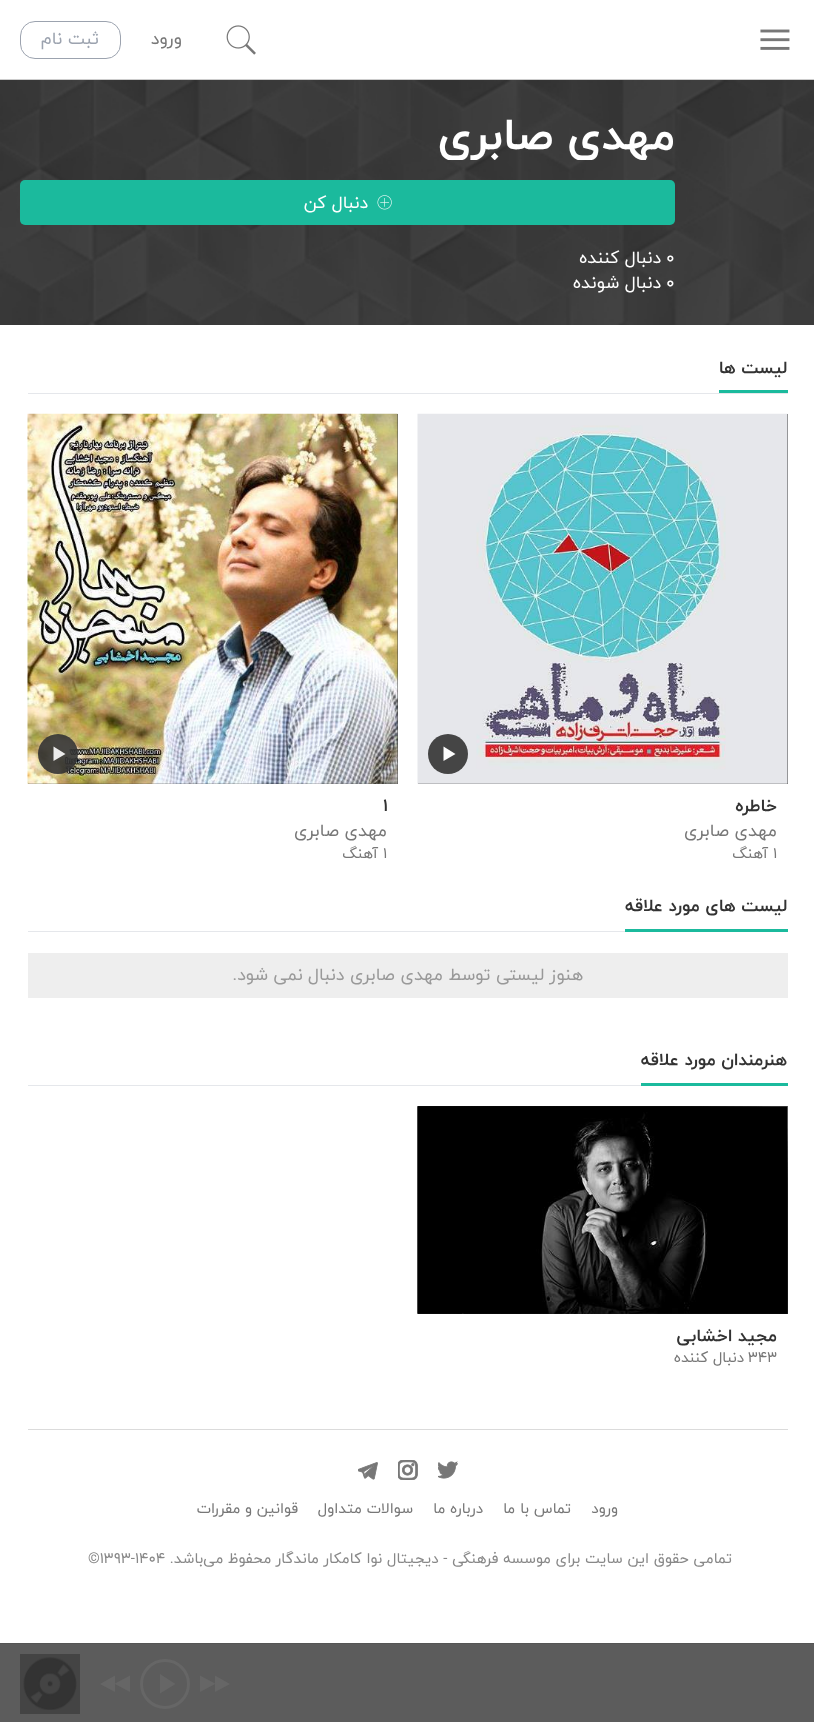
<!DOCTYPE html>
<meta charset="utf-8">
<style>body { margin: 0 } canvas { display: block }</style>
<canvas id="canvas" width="814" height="1722"></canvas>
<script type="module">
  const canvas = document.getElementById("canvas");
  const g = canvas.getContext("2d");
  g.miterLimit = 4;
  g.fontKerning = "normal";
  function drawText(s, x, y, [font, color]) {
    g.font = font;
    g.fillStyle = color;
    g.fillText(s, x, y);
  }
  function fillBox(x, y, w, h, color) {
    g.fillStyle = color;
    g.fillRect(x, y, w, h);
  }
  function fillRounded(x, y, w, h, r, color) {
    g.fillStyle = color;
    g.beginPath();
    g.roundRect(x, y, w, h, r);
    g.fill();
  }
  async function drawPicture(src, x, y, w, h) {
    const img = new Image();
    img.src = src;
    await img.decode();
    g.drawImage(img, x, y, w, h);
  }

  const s1 = ["17.5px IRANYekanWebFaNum", "#777777"];
  const s2 = ["17.5px IRANYekanWebFaNum", "#9CA3AF"];
  const s3 = ["bold 45px IRANYekanWebFaNum", "#FFFFFF"];
  const s4 = ["17.5px IRANYekanWebFaNum", "#FFFFFF"];
  const s5 = ["bold 17.5px IRANYekanWebFaNum", "#333333"];
  const s6 = ["15px IRANYekanWebFaNum", "#777777"];
  const s7 = ["17.5px IRANYekanWebFaNum", "#999999"];
  const s8 = ["15px IRANYekanWebFaNum", "#888888"];

  fillBox(0, 0, 814, 1722, "#FFFFFF");
  fillBox(0, 79, 814, 1, "#CCCCCC");
  await drawPicture("pic1.png", 760, 29, 30, 21);
  await drawPicture("pic2.png", 226, 25, 30, 30);
  g.direction = "rtl";
  drawText("ورود", 182, 44, s1);
  g.beginPath();
  g.roundRect(20.5, 21.5, 100, 37, 14.5);
  g.strokeStyle = "#9CA3AF";
  g.stroke();
  drawText("ثبت نام", 99, 44, s2);
  await drawPicture("pic3.png", 0, 80, 814, 245);
  g.save();
  g.beginPath();
  g.rect(438, 110, 237, 50);
  g.clip();
  drawText("مهدی صابری", 675, 149, s3);
  g.restore();
  fillRounded(20, 180, 655, 45, 5, "#1BBA9D");
  await drawPicture("pic4.png", 377, 195, 15, 15);
  drawText("دنبال کن", 368, 208, s4);
  g.direction = "ltr";
  drawText("0", 666, 263, s4);
  g.direction = "rtl";
  drawText("دنبال کننده", 661, 263, s4);
  g.direction = "ltr";
  drawText("0", 666, 288, s4);
  g.direction = "rtl";
  drawText("دنبال شونده", 661, 288, s4);
  fillBox(28, 393, 760, 1, "#E5E7EB");
  fillBox(719, 390, 69, 3, "#1BBA9D");
  drawText("لیست ها", 787, 373, s5);
  fillBox(418, 414, 370, 370, "#444444");
  await drawPicture("pic5.png", 417, 413, 371, 371);
  g.fillStyle = "#454545";
  g.beginPath();
  g.arc(448, 754, 20, 0, Math.PI * 2);
  g.fill();
  g.fillStyle = "#FDFDFD";
  g.beginPath();
  g.moveTo(443.5, 761);
  g.lineTo(455.5, 754);
  g.lineTo(443.5, 746.5);
  g.closePath();
  g.fill();
  drawText("خاطره", 777, 811, s5);
  drawText("مهدی صابری", 777, 836, s1);
  g.direction = "ltr";
  drawText("1", 773, 858, s6);
  g.direction = "rtl";
  drawText("آهنگ", 768, 858, s6);
  fillBox(28, 414, 370, 370, "#444444");
  await drawPicture("pic6.png", 27, 413, 371, 371);
  g.fillStyle = "rgba(51, 51, 51, 0.9)";
  g.beginPath();
  g.arc(58, 754, 20, 0, Math.PI * 2);
  g.fill();
  g.fillStyle = "rgba(255, 255, 255, 0.9)";
  g.beginPath();
  g.moveTo(53.5, 761);
  g.lineTo(65.5, 754);
  g.lineTo(53.5, 746.5);
  g.closePath();
  g.fill();
  g.direction = "ltr";
  drawText("۱", 383, 811, s5);
  g.direction = "rtl";
  drawText("مهدی صابری", 387, 836, s1);
  g.direction = "ltr";
  drawText("1", 383, 858, s6);
  g.direction = "rtl";
  drawText("آهنگ", 378, 858, s6);
  fillBox(28, 931, 597, 1, "#E5E7EB");
  fillBox(625, 929, 163, 3, "#1BBA9D");
  drawText("لیست های مورد علاقه", 787, 911, s5);
  fillBox(28, 953, 760, 45, "#EEEEEE");
  drawText("هنوز لیستی توسط مهدی صابری دنبال نمی شود.", 583, 980, s7);
  fillBox(28, 1085, 613, 1, "#E5E7EB");
  fillBox(641, 1083, 147, 3, "#1BBA9D");
  drawText("هنرمندان مورد علاقه", 787, 1065, s5);
  fillBox(418, 1106, 370, 208, "#444444");
  await drawPicture("pic7.png", 417, 1106, 371, 208);
  await drawPicture("pic8.png", 417, 1106, 371, 208);
  drawText("مجید اخشابی", 777, 1341, s5);
  g.direction = "ltr";
  drawText("343", 748, 1362, s6);
  g.direction = "rtl";
  drawText("دنبال کننده", 744, 1362, s6);
  fillBox(28, 1429, 760, 1, "#DBDBDB");
  await drawPicture("pic9.png", 438, 1461, 20, 18);
  await drawPicture("pic10.png", 398, 1460, 20, 20);
  await drawPicture("pic11.png", 358, 1462, 20, 18);
  drawText("ورود", 618, 1513, s6);
  drawText("تماس با ما", 571, 1513, s6);
  drawText("درباره ما", 483, 1513, s6);
  drawText("سوالات متداول", 413, 1513, s6);
  drawText("قوانین و مقررات", 298, 1513, s6);
  drawText("تمامی حقوق این سایت برای موسسه فرهنگی - دیجیتال نوا کامکار ماندگار محفوظ می‌باشد.", 732, 1563, s8);
  g.direction = "ltr";
  drawText("1404", 135, 1563, s8);
  drawText("©۱۳۹۳-", 88, 1563, s8);
  fillBox(0, 1644, 814, 78, "#5C5C5C");
  fillBox(0, 1643, 814, 1, "#555555");
  g.fillStyle = "#666666";
  g.beginPath();
  g.moveTo(215, 1675.5);
  g.lineTo(230, 1684);
  g.lineTo(215, 1692);
  g.lineTo(215, 1684);
  g.lineTo(200, 1692);
  g.lineTo(200, 1675.5);
  g.lineTo(215, 1683.5);
  g.closePath();
  g.fill();
  g.beginPath();
  g.arc(165, 1684, 23.5, 0, Math.PI * 2);
  g.strokeStyle = "#666666";
  g.lineWidth = 3;
  g.stroke();
  g.beginPath();
  g.moveTo(160, 1693.5);
  g.lineTo(175.5, 1684);
  g.lineTo(160, 1674);
  g.closePath();
  g.fill();
  g.beginPath();
  g.moveTo(115, 1675.5);
  g.lineTo(115, 1683.5);
  g.lineTo(130, 1675.5);
  g.lineTo(130, 1692);
  g.lineTo(115, 1684);
  g.lineTo(115, 1692);
  g.lineTo(100, 1684);
  g.closePath();
  g.fill();
  fillBox(20, 1654, 60, 60, "#444444");
  await drawPicture("pic12.png", 23, 1657, 54, 53);
</script>
